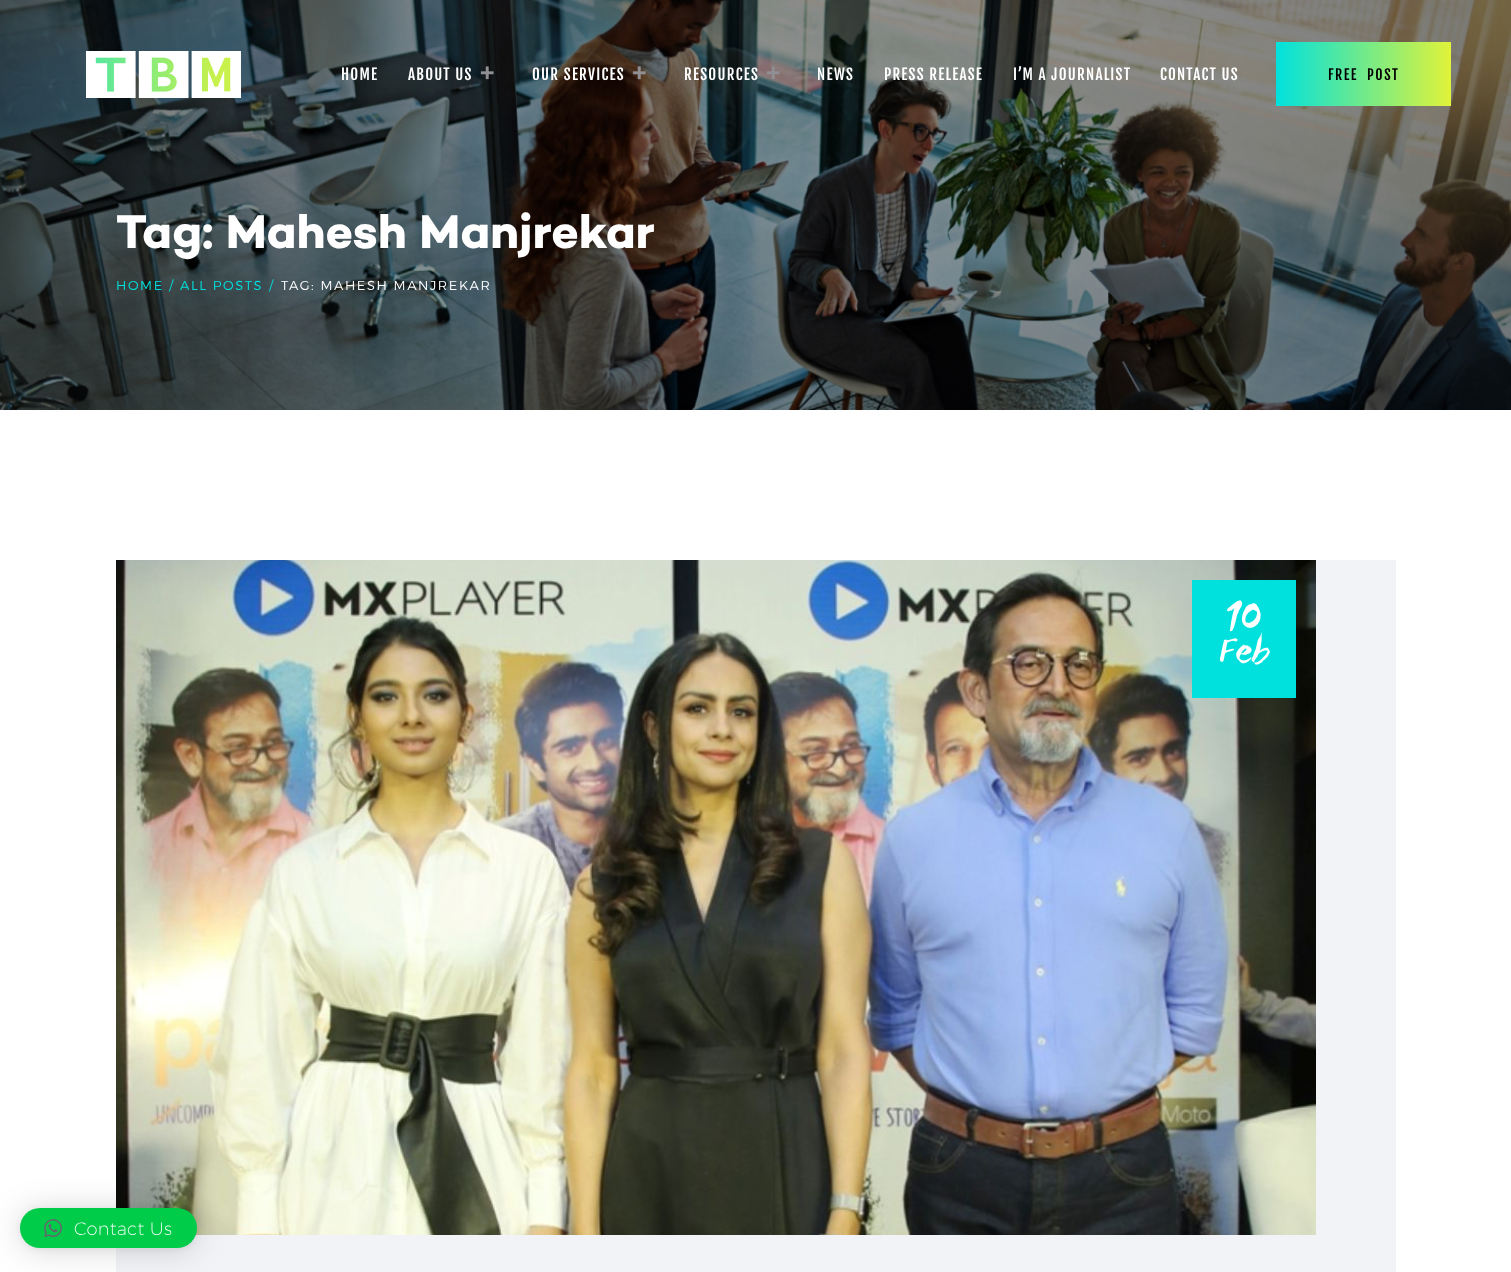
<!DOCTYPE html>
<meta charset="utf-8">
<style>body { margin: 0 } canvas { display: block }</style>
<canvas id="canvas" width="1511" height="1272"></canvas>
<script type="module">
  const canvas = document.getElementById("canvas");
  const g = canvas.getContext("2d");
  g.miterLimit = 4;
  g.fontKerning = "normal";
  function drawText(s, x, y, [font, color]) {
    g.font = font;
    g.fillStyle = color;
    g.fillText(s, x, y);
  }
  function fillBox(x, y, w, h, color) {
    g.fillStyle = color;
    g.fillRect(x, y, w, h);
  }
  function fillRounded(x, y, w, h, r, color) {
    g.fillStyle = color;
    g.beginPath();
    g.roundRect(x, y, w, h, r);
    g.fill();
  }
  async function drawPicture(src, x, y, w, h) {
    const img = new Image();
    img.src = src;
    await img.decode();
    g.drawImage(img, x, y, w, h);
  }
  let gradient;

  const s1 = ["15px Fjalla One", "#FFFFFF"];
  const s2 = ["14px Fjalla One", "#000000"];
  const s3 = ["bold 48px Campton", "#FFFFFF"];
  const s4 = ["300 13px Montserrat", "#00E1DD"];
  const s5 = ["300 13px Montserrat", "#FFFFFF"];
  const s6 = ["39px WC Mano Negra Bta", "#FFFFFF"];
  const s7 = ["200 18px Montserrat", "#FFFFFF"];

  fillBox(0, 0, 1511, 1272, "#FFFFFF");
  await drawPicture("pic1.png", 0, 0, 1511, 410);
  await drawPicture("pic2.png", 86, 51, 155, 47);
  g.letterSpacing = "1.25px";
  drawText("HOME", 341, 80, s1);
  drawText("ABOUT US", 408, 80, s1);
  await drawPicture("pic3.png", 480, 66, 14, 14);
  drawText("OUR SERVICES", 532, 80, s1);
  await drawPicture("pic4.png", 632, 66, 14, 14);
  drawText("RESOURCES", 684, 80, s1);
  await drawPicture("pic5.png", 766, 66, 14, 13);
  drawText("NEWS", 817, 80, s1);
  drawText("PRESS RELEASE", 884, 80, s1);
  drawText("I’M A JOURNALIST", 1013, 80, s1);
  drawText("CONTACT US", 1160, 80, s1);
  gradient = g.createLinearGradient(1276, 74, 1451, 74);
  gradient.addColorStop(0, "#00E1DD");
  gradient.addColorStop(1, "#E1F339");
  g.fillStyle = gradient;
  g.fillRect(1276, 42, 175, 64);
  g.letterSpacing = "1.5px";
  drawText("FREE", 1328, 80, s2);
  drawText("POST", 1367, 80, s2);
  g.letterSpacing = "0px";
  drawText("Tag: Mahesh Manjrekar", 116, 248, s3);
  g.letterSpacing = "1.6px";
  drawText("HOME", 116, 290, s4);
  drawText("/", 169, 290, s4);
  drawText("ALL POSTS", 180, 290, s4);
  drawText("/", 269, 290, s4);
  drawText("TAG: MAHESH MANJREKAR", 281, 290, s5);
  fillBox(116, 560, 1280, 712, "#F2F3F7");
  await drawPicture("pic6.png", 116, 560, 1200, 675);
  fillBox(1192, 580, 104, 118, "#00E1DD");
  g.letterSpacing = "0.25px";
  drawText("10", 1226, 626, s6);
  drawText("Feb", 1219, 661, s6);
  g.fillStyle = "rgba(0, 0, 0, 0.16)";
  g.filter = "blur(16px)";
  g.beginPath();
  g.roundRect(20, 1210, 177, 40, 20);
  g.fill();
  g.filter = "none";
  g.fillStyle = "rgba(0, 0, 0, 0.06)";
  g.filter = "blur(3px)";
  g.beginPath();
  g.roundRect(20, 1209, 177, 40, 20);
  g.fill();
  g.filter = "none";
  fillRounded(20, 1208, 177, 40, 20, "#00CC4A");
  await drawPicture("pic7.png", 44, 1219, 18, 18);
  drawText("Contact Us", 74, 1235, s7);
</script>
